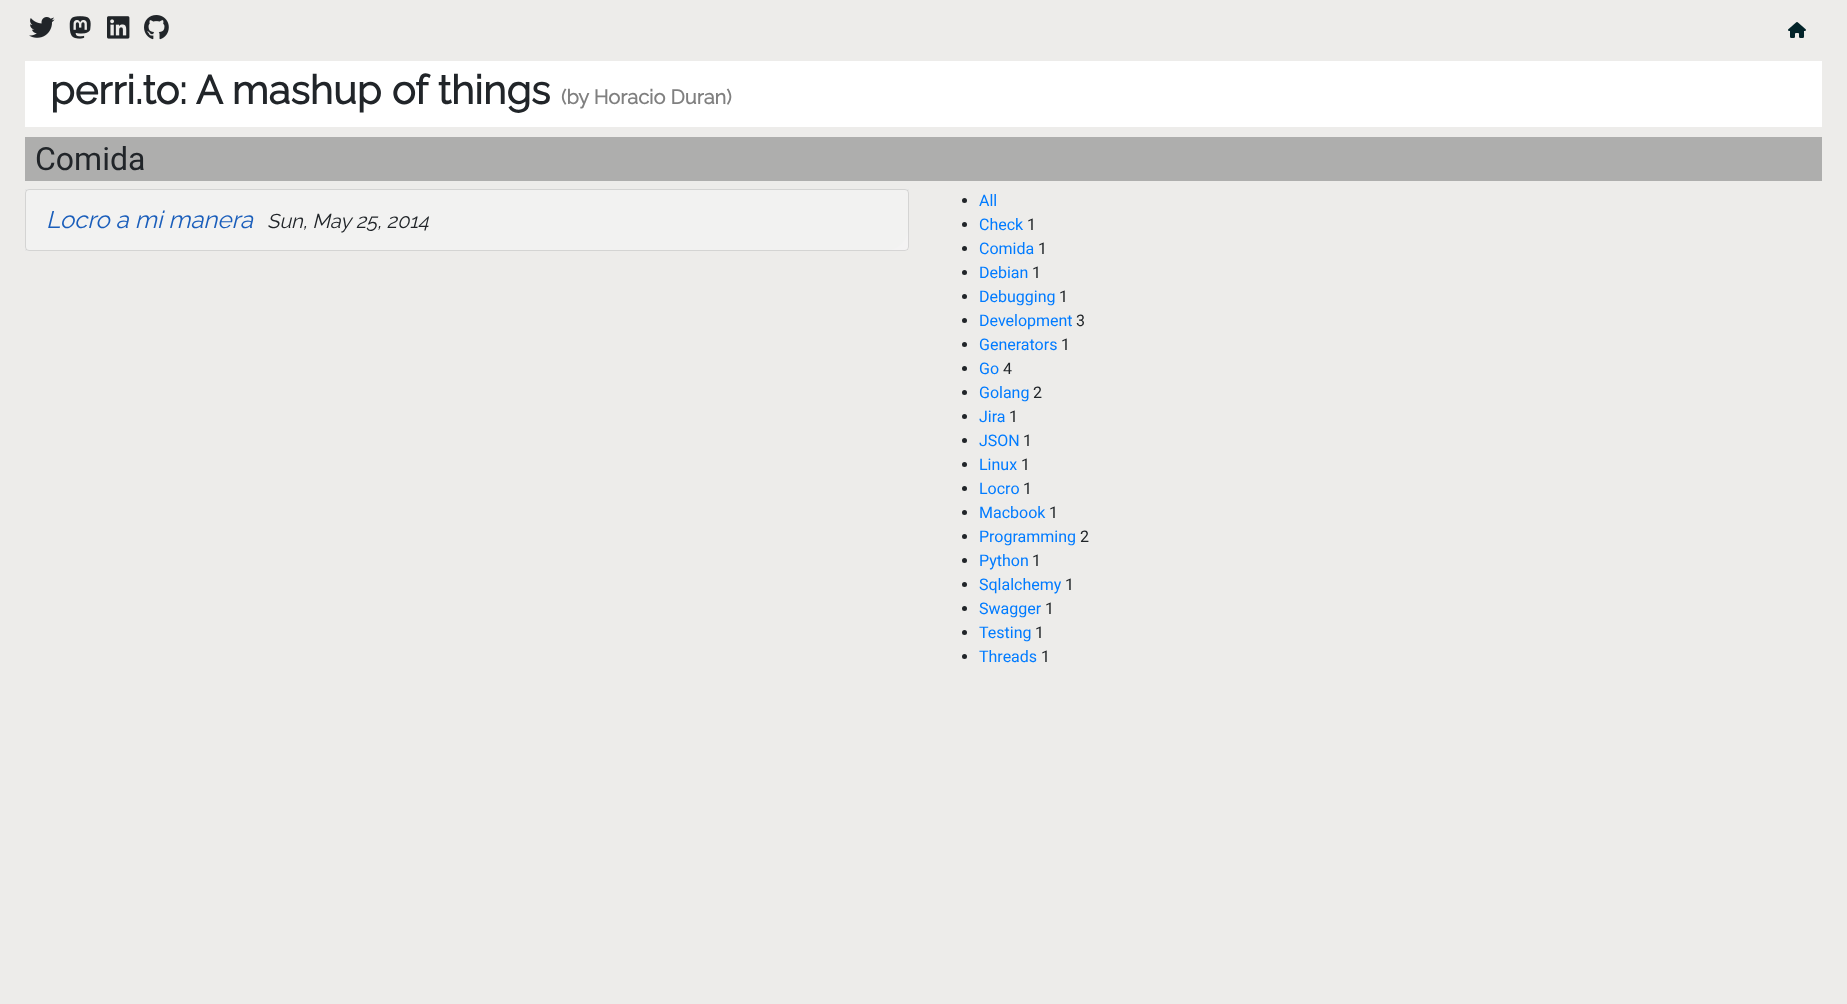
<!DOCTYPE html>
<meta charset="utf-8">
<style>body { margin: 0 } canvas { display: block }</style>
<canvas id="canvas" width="1847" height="1004"></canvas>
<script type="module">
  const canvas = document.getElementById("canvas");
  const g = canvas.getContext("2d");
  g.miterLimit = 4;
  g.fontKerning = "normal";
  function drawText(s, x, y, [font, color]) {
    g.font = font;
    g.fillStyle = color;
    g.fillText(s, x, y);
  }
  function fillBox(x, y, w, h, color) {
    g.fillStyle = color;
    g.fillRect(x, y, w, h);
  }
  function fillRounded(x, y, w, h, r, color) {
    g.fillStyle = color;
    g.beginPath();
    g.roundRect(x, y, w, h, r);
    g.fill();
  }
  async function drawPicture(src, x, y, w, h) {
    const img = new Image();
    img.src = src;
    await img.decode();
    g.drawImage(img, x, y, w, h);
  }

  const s1 = ["bold 40px Raleway", "#212529"];
  const s2 = ["bold 20px Raleway", "#808080"];
  const s3 = ["32px Roboto", "#212529"];
  const s4 = ["italic 100 24px Raleway", "#1A5EBB"];
  const s5 = ["italic 100 20px Raleway", "#212529"];
  const s6 = ["16px Roboto", "#007BFF"];
  const s7 = ["16px Roboto", "#212529"];

  fillBox(0, 0, 1847, 1004, "#EDECEA");
  await drawPicture("pic1.png", 29, 17, 26, 21);
  await drawPicture("pic2.png", 69, 16, 22, 23);
  await drawPicture("pic3.png", 107, 16, 23, 23);
  await drawPicture("pic4.png", 144, 15, 25, 25);
  await drawPicture("pic5.png", 1788, 22, 18, 16);
  fillBox(25, 61, 1797, 66, "#FFFFFF");
  drawText("perri.to: A mashup of things", 50, 104, s1);
  drawText("(by Horacio Duran)", 561, 104, s2);
  fillBox(25, 137, 1797, 44, "#AEAEAD");
  drawText("Comida", 35, 170, s3);
  g.fillStyle = "#E6E6E5";
  g.beginPath();
  g.roundRect(25, 189, 884, 62, [0, 0, 25, 0]);
  g.fill();
  fillRounded(25, 189, 884, 62, 4, "rgba(247, 247, 247, 0.7)");
  g.beginPath();
  g.roundRect(25.5, 189.5, 883, 61, 3.5);
  g.strokeStyle = "rgba(0, 0, 0, 0.12)";
  g.stroke();
  drawText("Locro a mi manera", 46, 228, s4);
  drawText("Sun, May 25, 2014", 267, 228, s5);
  g.beginPath();
  g.arc(964.5, 200.5, 2.5, 0, Math.PI * 2);
  g.fill();
  drawText("All", 979, 206, s6);
  g.fillStyle = "#212529";
  g.beginPath();
  g.arc(964.5, 224.5, 2.5, 0, Math.PI * 2);
  g.fill();
  drawText("Check", 979, 230, s6);
  drawText("1", 1027, 230, s7);
  g.beginPath();
  g.arc(964.5, 248.5, 2.5, 0, Math.PI * 2);
  g.fill();
  drawText("Comida", 979, 254, s6);
  drawText("1", 1038, 254, s7);
  g.beginPath();
  g.arc(964.5, 272.5, 2.5, 0, Math.PI * 2);
  g.fill();
  drawText("Debian", 979, 278, s6);
  drawText("1", 1032, 278, s7);
  g.beginPath();
  g.arc(964.5, 296.5, 2.5, 0, Math.PI * 2);
  g.fill();
  drawText("Debugging", 979, 302, s6);
  drawText("1", 1059, 302, s7);
  g.beginPath();
  g.arc(964.5, 320.5, 2.5, 0, Math.PI * 2);
  g.fill();
  drawText("Development", 979, 326, s6);
  drawText("3", 1076, 326, s7);
  g.beginPath();
  g.arc(964.5, 344.5, 2.5, 0, Math.PI * 2);
  g.fill();
  drawText("Generators", 979, 350, s6);
  drawText("1", 1061, 350, s7);
  g.beginPath();
  g.arc(964.5, 368.5, 2.5, 0, Math.PI * 2);
  g.fill();
  drawText("Go", 979, 374, s6);
  drawText("4", 1003, 374, s7);
  g.beginPath();
  g.arc(964.5, 392.5, 2.5, 0, Math.PI * 2);
  g.fill();
  drawText("Golang", 979, 398, s6);
  drawText("2", 1033, 398, s7);
  g.beginPath();
  g.arc(964.5, 416.5, 2.5, 0, Math.PI * 2);
  g.fill();
  drawText("Jira", 979, 422, s6);
  drawText("1", 1009, 422, s7);
  g.beginPath();
  g.arc(964.5, 440.5, 2.5, 0, Math.PI * 2);
  g.fill();
  drawText("JSON", 979, 446, s6);
  drawText("1", 1023, 446, s7);
  g.beginPath();
  g.arc(964.5, 464.5, 2.5, 0, Math.PI * 2);
  g.fill();
  drawText("Linux", 979, 470, s6);
  drawText("1", 1021, 470, s7);
  g.beginPath();
  g.arc(964.5, 488.5, 2.5, 0, Math.PI * 2);
  g.fill();
  drawText("Locro", 979, 494, s6);
  drawText("1", 1023, 494, s7);
  g.beginPath();
  g.arc(964.5, 512.5, 2.5, 0, Math.PI * 2);
  g.fill();
  drawText("Macbook", 979, 518, s6);
  drawText("1", 1049, 518, s7);
  g.beginPath();
  g.arc(964.5, 536.5, 2.5, 0, Math.PI * 2);
  g.fill();
  drawText("Programming", 979, 542, s6);
  drawText("2", 1080, 542, s7);
  g.beginPath();
  g.arc(964.5, 560.5, 2.5, 0, Math.PI * 2);
  g.fill();
  drawText("Python", 979, 566, s6);
  drawText("1", 1032, 566, s7);
  g.beginPath();
  g.arc(964.5, 584.5, 2.5, 0, Math.PI * 2);
  g.fill();
  drawText("Sqlalchemy", 979, 590, s6);
  drawText("1", 1065, 590, s7);
  g.beginPath();
  g.arc(964.5, 608.5, 2.5, 0, Math.PI * 2);
  g.fill();
  drawText("Swagger", 979, 614, s6);
  drawText("1", 1045, 614, s7);
  g.beginPath();
  g.arc(964.5, 632.5, 2.5, 0, Math.PI * 2);
  g.fill();
  drawText("Testing", 979, 638, s6);
  drawText("1", 1035, 638, s7);
  g.beginPath();
  g.arc(964.5, 656.5, 2.5, 0, Math.PI * 2);
  g.fill();
  drawText("Threads", 979, 662, s6);
  drawText("1", 1041, 662, s7);
</script>
